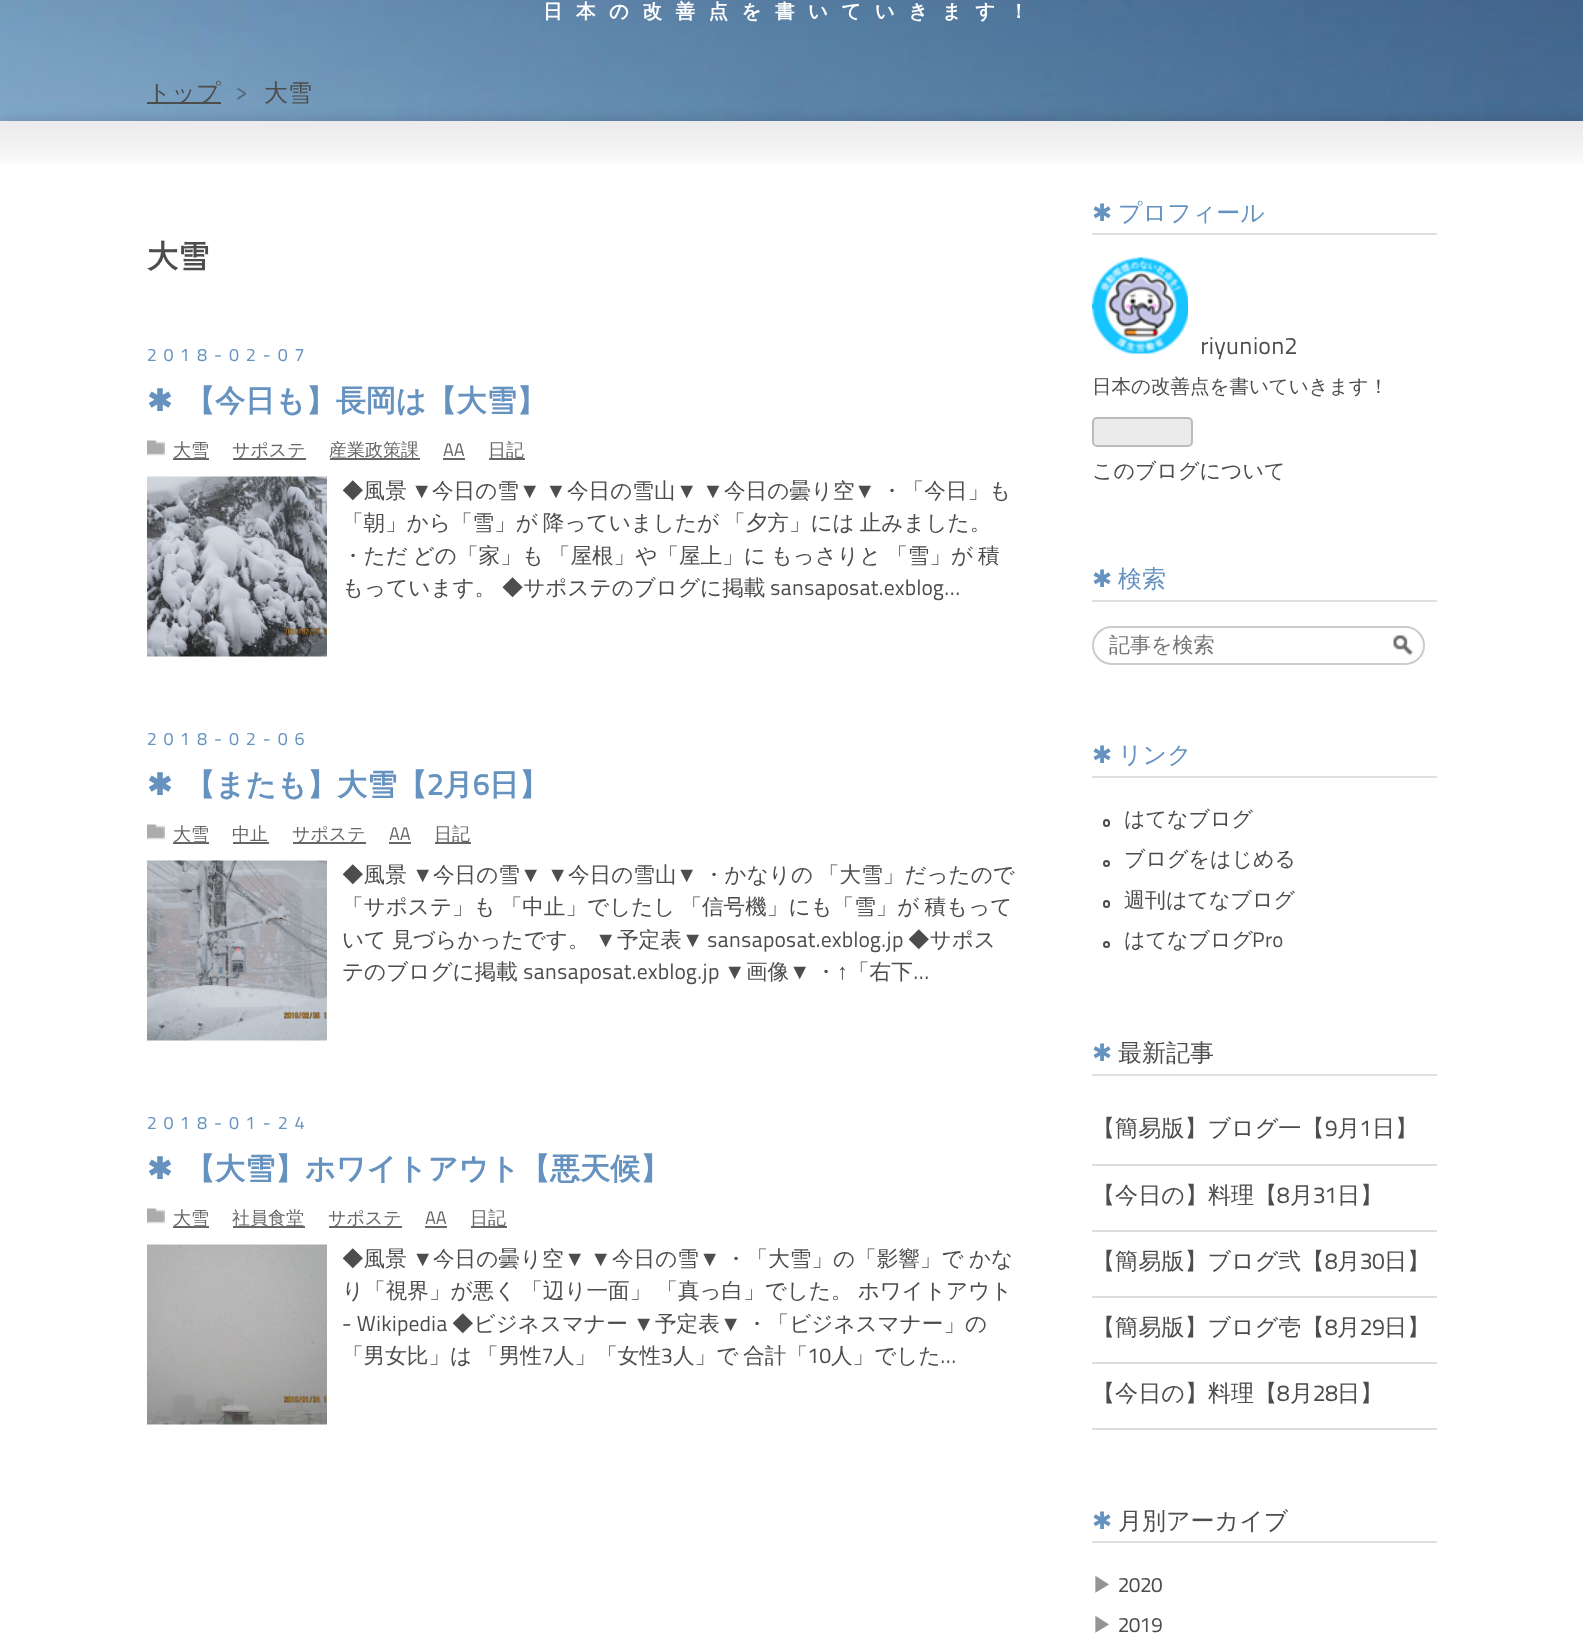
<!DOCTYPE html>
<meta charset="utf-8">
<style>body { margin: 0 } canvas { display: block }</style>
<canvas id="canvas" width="1583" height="1649"></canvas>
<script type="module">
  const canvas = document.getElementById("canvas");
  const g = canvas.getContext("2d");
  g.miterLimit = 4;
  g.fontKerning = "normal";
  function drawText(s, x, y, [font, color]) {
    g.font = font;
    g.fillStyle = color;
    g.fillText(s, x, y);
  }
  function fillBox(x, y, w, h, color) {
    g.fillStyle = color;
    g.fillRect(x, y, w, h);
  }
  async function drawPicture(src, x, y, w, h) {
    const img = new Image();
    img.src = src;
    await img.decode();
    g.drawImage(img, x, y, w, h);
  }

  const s1 = ["bold 19.5px WenQuanYi Zen Hei", "#FFFFFF"];
  const s2 = ["500 24px WenQuanYi Zen Hei", "#4D4D4D"];
  const s3 = ["24px 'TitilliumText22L'", "#59656E"];
  const s4 = ["bold 31px WenQuanYi Zen Hei", "#4D4D4D"];
  const s5 = ["18px 'TitilliumText22L'", "#6692C0"];
  const s6 = ["bold 30px DejaVu Sans", "#6692C0"];
  const s7 = ["bold 30px WenQuanYi Zen Hei", "#6692C0"];
  const s8 = ["500 18px WenQuanYi Zen Hei", "#666666"];
  const s9 = ["18px 'TitilliumText22L'", "#666666"];
  const s10 = ["500 21.6px WenQuanYi Zen Hei", "#4D4D4D"];
  const s11 = ["21.6px Liberation Sans", "#4D4D4D"];
  const s12 = ["21.6px 'TitilliumText22L'", "#4D4D4D"];
  const s13 = ["bold 30px 'TitilliumText22L'", "#6692C0"];
  const s14 = ["24px DejaVu Sans", "#6692C0"];
  const s15 = ["500 24px WenQuanYi Zen Hei", "#6692C0"];
  const s16 = ["24px 'TitilliumText22L'", "#4D4D4D"];
  const s17 = ["500 19.5px WenQuanYi Zen Hei", "#4D4D4D"];
  const s18 = ["500 21px WenQuanYi Zen Hei", "#4D4D4D"];
  const s19 = ["500 21px WenQuanYi Zen Hei", "#757575"];
  const s20 = ["21px 'TitilliumText22L'", "#4D4D4D"];
  const s21 = ["500 23.1px WenQuanYi Zen Hei", "#4D4D4D"];
  const s22 = ["23.1px 'TitilliumText22L'", "#4D4D4D"];
  const s23 = ["500 21px WenQuanYi Zen Hei", "#949494"];

  fillBox(0, 0, 1583, 1649, "#FFFFFF");
  await drawPicture("pic1.png", 0, 0, 1583, 121);
  g.letterSpacing = "13.5px";
  drawText("日本の改善点を書いていきます！", 543, 18, s1);
  g.fillStyle = "rgba(0, 0, 0, 0.2)";
  g.filter = "blur(7.5px)";
  g.beginPath();
  g.rect(0, 122, 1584, 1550);
  g.fill();
  g.filter = "none";
  fillBox(147, 102, 74, 2, "#4D4D4D");
  g.letterSpacing = "0px";
  drawText("トップ", 147, 101, s2);
  drawText(">", 236, 101, s3);
  drawText("大雪", 264, 101, s2);
  fillBox(0, 164, 1583, 1485, "#FFFFFF");
  await drawPicture("pic2.png", 0, 121, 1583, 43);
  drawText("大雪", 147, 267, s4);
  g.letterSpacing = "7.25px";
  drawText("2018-02-07", 147, 361, s5);
  g.letterSpacing = "0px";
  drawText("✱", 147, 411, s6);
  drawText("【今日も】長岡は【大雪】", 185, 411, s7);
  await drawPicture("pic3.png", 147, 440, 18, 16);
  fillBox(173, 458, 36, 2, "#666666");
  drawText("大雪", 173, 456, s8);
  fillBox(233, 458, 73, 2, "#666666");
  drawText("サポステ", 232, 456, s8);
  fillBox(330, 458, 90, 2, "#666666");
  drawText("産業政策課", 329, 456, s8);
  drawText("AA", 443, 456, s9);
  fillBox(443, 458, 22, 2, "#666666");
  fillBox(489, 458, 36, 2, "#666666");
  drawText("日記", 488, 456, s8);
  await drawPicture("pic4.png", 147, 476, 180, 181);
  drawText("◆風景", 342, 498, s10);
  drawText("▼", 411, 498, s11);
  drawText("今日の雪", 432, 498, s10);
  g.wordSpacing = "-1px";
  drawText("▼ ▼", 519, 498, s11);
  g.wordSpacing = "0px";
  drawText("今日の雪山", 567, 498, s10);
  g.wordSpacing = "-1px";
  drawText("▼ ▼", 676, 498, s11);
  g.wordSpacing = "0px";
  drawText("今日の曇り空", 724, 498, s10);
  drawText("▼", 854, 498, s11);
  drawText("・「今日」も", 881, 498, s10);
  g.wordSpacing = "-1.5px";
  drawText("「朝」から「雪」が 降っていましたが 「夕方」には 止みました。", 342, 530, s10);
  drawText("・ただ どの「家」も 「屋根」や「屋上」に もっさりと 「雪」が 積", 342, 563, s10);
  g.wordSpacing = "-1px";
  drawText("もっています。 ◆サポステのブログに掲載", 342, 595, s10);
  g.wordSpacing = "0px";
  drawText("sansaposat.exblog…", 770, 595, s12);
  g.letterSpacing = "7.25px";
  drawText("2018-02-06", 147, 745, s5);
  g.letterSpacing = "0px";
  drawText("✱", 147, 795, s6);
  drawText("【またも】大雪【", 185, 795, s7);
  drawText("2", 427, 795, s13);
  drawText("月", 443, 795, s7);
  drawText("6", 473, 795, s13);
  drawText("日】", 489, 795, s7);
  await drawPicture("pic3.png", 147, 824, 18, 16);
  fillBox(173, 842, 36, 2, "#666666");
  drawText("大雪", 173, 840, s8);
  drawText("中止", 232, 840, s8);
  fillBox(233, 842, 36, 2, "#666666");
  fillBox(293, 842, 73, 2, "#666666");
  drawText("サポステ", 292, 840, s8);
  drawText("AA", 389, 840, s9);
  fillBox(389, 842, 22, 2, "#666666");
  fillBox(435, 842, 36, 2, "#666666");
  drawText("日記", 434, 840, s8);
  await drawPicture("pic5.png", 147, 860, 180, 181);
  drawText("◆風景", 342, 882, s10);
  drawText("▼", 412, 882, s11);
  drawText("今日の雪", 433, 882, s10);
  drawText("▼", 520, 882, s11);
  drawText("▼", 547, 882, s11);
  drawText("今日の雪山", 568, 882, s10);
  drawText("▼", 676, 882, s11);
  drawText("・かなりの", 703, 882, s10);
  drawText("「大雪」だったので", 818, 882, s10);
  g.wordSpacing = "-1.5px";
  drawText("「サポステ」も 「中止」でしたし 「信号機」にも「雪」が 積もって", 342, 914, s10);
  g.wordSpacing = "-1px";
  drawText("いて 見づらかったです。", 342, 947, s10);
  g.wordSpacing = "0px";
  drawText("▼", 595, 947, s11);
  drawText("予定表", 617, 947, s10);
  drawText("▼", 682, 947, s11);
  drawText("sansaposat.exblog.jp", 707, 947, s12);
  drawText("◆サポス", 908, 947, s10);
  drawText("テのブログに掲載", 342, 979, s10);
  drawText("sansaposat.exblog.jp", 523, 979, s12);
  drawText("▼", 724, 979, s11);
  drawText("画像", 746, 979, s10);
  drawText("▼", 789, 979, s11);
  drawText("・", 815, 979, s10);
  drawText("↑", 837, 979, s11);
  drawText("「右下", 848, 979, s10);
  drawText("…", 913, 979, s12);
  g.letterSpacing = "7.25px";
  drawText("2018-01-24", 147, 1129, s5);
  g.letterSpacing = "0px";
  drawText("✱", 147, 1179, s6);
  drawText("【大雪】ホワイトアウト【悪天候】", 185, 1179, s7);
  await drawPicture("pic3.png", 147, 1208, 18, 16);
  fillBox(173, 1226, 36, 2, "#666666");
  drawText("大雪", 173, 1224, s8);
  fillBox(233, 1226, 72, 2, "#666666");
  drawText("社員食堂", 232, 1224, s8);
  fillBox(329, 1226, 73, 2, "#666666");
  drawText("サポステ", 328, 1224, s8);
  drawText("AA", 425, 1224, s9);
  fillBox(425, 1226, 22, 2, "#666666");
  fillBox(471, 1226, 36, 2, "#666666");
  drawText("日記", 470, 1224, s8);
  await drawPicture("pic6.png", 147, 1244, 180, 181);
  drawText("◆風景", 342, 1266, s10);
  drawText("▼", 412, 1266, s11);
  drawText("今日の曇り空", 433, 1266, s10);
  drawText("▼", 564, 1266, s11);
  drawText("▼", 590, 1266, s11);
  drawText("今日の雪", 612, 1266, s10);
  drawText("▼", 699, 1266, s11);
  drawText("・「大雪」の「影響」で", 725, 1266, s10);
  drawText("かな", 969, 1266, s10);
  g.wordSpacing = "-1.5px";
  drawText("り「視界」が悪く 「辺り一面」 「真っ白」でした。 ホワイトアウト", 342, 1298, s10);
  g.wordSpacing = "0px";
  drawText("- Wikipedia", 342, 1331, s12);
  drawText("◆ビジネスマナー", 452, 1331, s10);
  drawText("▼", 633, 1331, s11);
  drawText("予定表", 655, 1331, s10);
  drawText("▼", 720, 1331, s11);
  drawText("・「ビジネスマナー」の", 746, 1331, s10);
  g.wordSpacing = "-1.5px";
  drawText("「男女比」は 「男性", 342, 1363, s10);
  g.wordSpacing = "0px";
  drawText("7", 542, 1363, s12);
  drawText("人」「女性", 553, 1363, s10);
  drawText("3", 661, 1363, s12);
  g.wordSpacing = "-1.5px";
  drawText("人」で 合計「", 673, 1363, s10);
  g.wordSpacing = "0px";
  drawText("10", 808, 1363, s12);
  drawText("人」でした", 831, 1363, s10);
  drawText("…", 940, 1363, s12);
  fillBox(1092, 233, 345, 2, "#DFDFDF");
  drawText("✱", 1092, 221, s14);
  drawText("プロフィール", 1118, 221, s15);
  await drawPicture("pic7.png", 1092, 257, 96, 97);
  drawText("riyunion2", 1200, 354, s16);
  drawText("日本の改善点を書いていきます！", 1092, 393, s17);
  g.fillStyle = "#EBEBEB";
  g.beginPath();
  g.roundRect(1093, 418, 99, 28, 4);
  g.fill();
  g.strokeStyle = "#BBBBBB";
  g.lineWidth = 2;
  g.stroke();
  drawText("このブログについて", 1092, 478, s18);
  fillBox(1092, 600, 345, 2, "#DFDFDF");
  drawText("✱", 1092, 587, s14);
  drawText("検索", 1118, 587, s15);
  g.beginPath();
  g.roundRect(1093, 627, 331, 37, 18.5);
  g.strokeStyle = "#CCCCCC";
  g.stroke();
  drawText("記事を検索", 1109, 652, s19);
  await drawPicture("pic8.png", 1393, 635, 21, 21);
  fillBox(1092, 776, 345, 2, "#DFDFDF");
  drawText("✱", 1092, 763, s14);
  drawText("リンク", 1118, 763, s15);
  g.beginPath();
  g.roundRect(1104, 820, 5, 6, 2.5);
  g.strokeStyle = "#4D4D4D";
  g.stroke();
  drawText("はてなブログ", 1124, 826, s18);
  g.beginPath();
  g.arc(1106.5, 863.5, 2.5, 0, Math.PI * 2);
  g.stroke();
  drawText("ブログをはじめる", 1124, 866, s18);
  g.beginPath();
  g.roundRect(1104, 901, 5, 6, 2.5);
  g.stroke();
  drawText("週刊はてなブログ", 1124, 907, s18);
  g.beginPath();
  g.arc(1106.5, 944.5, 2.5, 0, Math.PI * 2);
  g.stroke();
  drawText("はてなブログ", 1124, 947, s18);
  drawText("Pro", 1252, 947, s20);
  fillBox(1092, 1074, 345, 2, "#DFDFDF");
  drawText("✱", 1092, 1061, s14);
  drawText("最新記事", 1118, 1061, s2);
  fillBox(1092, 1164, 345, 2, "#DDDDDD");
  drawText("【簡易版】ブログ一【", 1092, 1136, s21);
  drawText("9", 1325, 1136, s22);
  drawText("月", 1337, 1136, s21);
  drawText("1", 1360, 1136, s22);
  drawText("日】", 1372, 1136, s21);
  fillBox(1092, 1230, 345, 2, "#DDDDDD");
  drawText("【今日の】料理【", 1092, 1203, s21);
  drawText("8", 1277, 1203, s22);
  drawText("月", 1290, 1203, s21);
  drawText("31", 1313, 1203, s22);
  drawText("日】", 1337, 1203, s21);
  fillBox(1092, 1296, 345, 2, "#DDDDDD");
  drawText("【簡易版】ブログ弐【", 1092, 1269, s21);
  drawText("8", 1325, 1269, s22);
  drawText("月", 1337, 1269, s21);
  drawText("30", 1360, 1269, s22);
  drawText("日】", 1384, 1269, s21);
  fillBox(1092, 1362, 345, 2, "#DDDDDD");
  drawText("【簡易版】ブログ壱【", 1092, 1335, s21);
  drawText("8", 1325, 1335, s22);
  drawText("月", 1337, 1335, s21);
  drawText("29", 1360, 1335, s22);
  drawText("日】", 1384, 1335, s21);
  fillBox(1092, 1428, 345, 2, "#DDDDDD");
  drawText("【今日の】料理【", 1092, 1401, s21);
  drawText("8", 1277, 1401, s22);
  drawText("月", 1290, 1401, s21);
  drawText("28", 1313, 1401, s22);
  drawText("日】", 1337, 1401, s21);
  fillBox(1092, 1541, 345, 2, "#DFDFDF");
  drawText("✱", 1092, 1529, s14);
  drawText("月別アーカイブ", 1118, 1529, s2);
  drawText("▶", 1092, 1592, s23);
  drawText("2020", 1118, 1592, s20);
  drawText("▶", 1092, 1632, s23);
  drawText("2019", 1118, 1632, s20);
</script>
